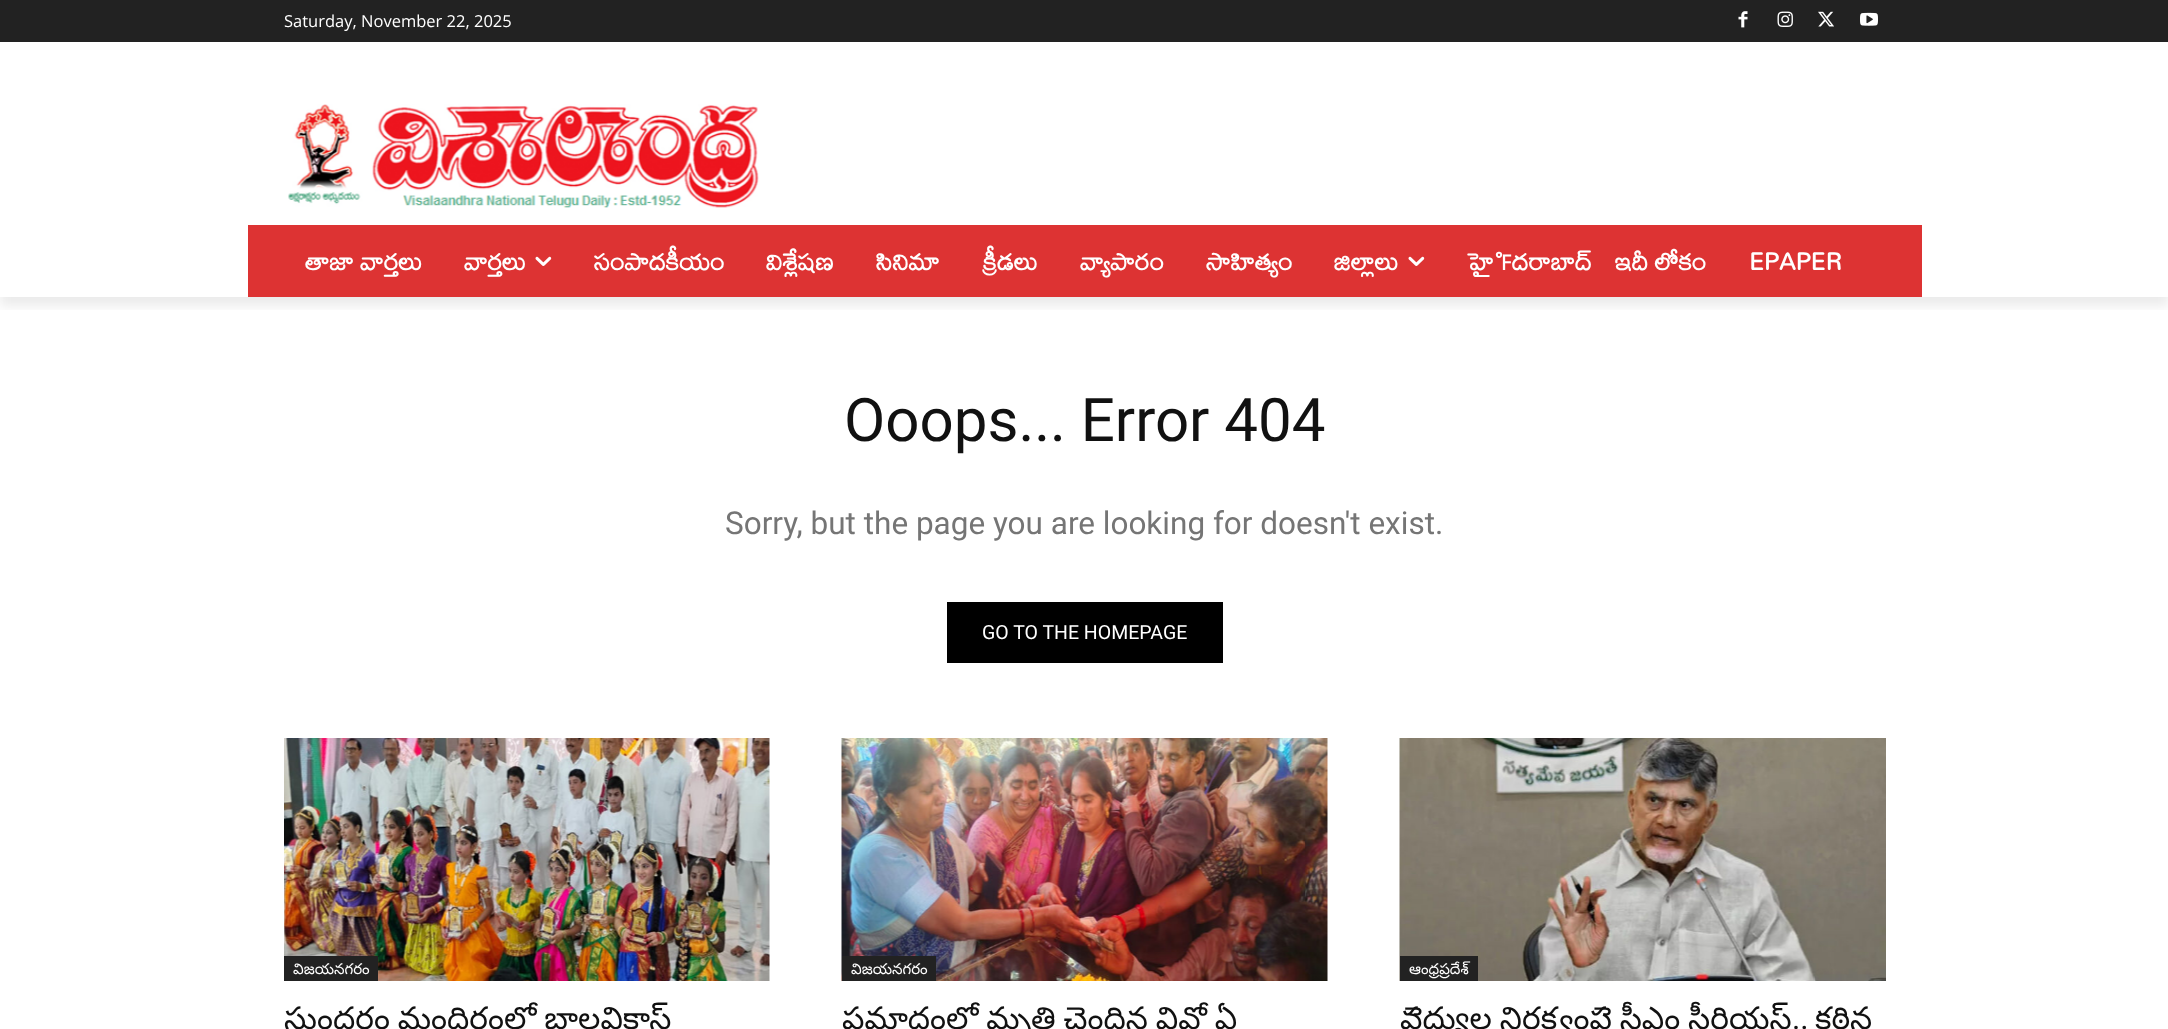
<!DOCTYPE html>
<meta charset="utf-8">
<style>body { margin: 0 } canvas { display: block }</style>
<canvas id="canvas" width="2168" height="1029"></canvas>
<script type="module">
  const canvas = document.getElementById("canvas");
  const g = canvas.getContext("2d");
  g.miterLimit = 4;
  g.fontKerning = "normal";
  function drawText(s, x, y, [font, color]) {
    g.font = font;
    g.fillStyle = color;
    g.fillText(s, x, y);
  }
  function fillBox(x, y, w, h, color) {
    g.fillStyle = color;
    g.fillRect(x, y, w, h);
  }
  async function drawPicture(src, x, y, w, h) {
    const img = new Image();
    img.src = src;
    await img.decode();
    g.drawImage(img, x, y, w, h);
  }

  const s1 = ["16.5px Open Sans", "#FFFFFF"];
  const s2 = ["bold 27px Mallanna", "#FFFFFF"];
  const s3 = ["60px Roboto", "#111111"];
  const s4 = ["31.5px Roboto", "#757575"];
  const s5 = ["19.5px Roboto", "#FFFFFF"];
  const s6 = ["15px Noto Sans Telugu", "#FFFFFF"];
  const s7 = ["31.5px Noto Sans Telugu", "#111111"];
  const s8 = ["31.5px Roboto", "#111111"];

  fillBox(0, 0, 2168, 1029, "#FFFFFF");
  fillBox(0, 0, 2168, 42, "#222222");
  await drawPicture("pic1.png", 1738, 11, 10, 17);
  await drawPicture("pic2.png", 1777, 11, 16, 16);
  await drawPicture("pic3.png", 1818, 11, 16, 16);
  await drawPicture("pic4.png", 1860, 12, 18, 14);
  await drawPicture("pic5.png", 288, 104, 471, 104);
  fillBox(248, 225, 1674, 72, "#DD3333");
  g.save();
  g.beginPath();
  g.rect(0, 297, 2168, 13);
  g.clip();
  g.fillStyle = "rgba(0, 0, 0, 0.08)";
  g.filter = "blur(6px)";
  g.beginPath();
  g.rect(0, 9, 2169, 297);
  g.fill();
  g.filter = "none";
  g.restore();
  drawText("Saturday, November 22, 2025", 284, 27, s1);
  drawText("తాజా వార్తలు", 305, 270, s2);
  drawText("వార్తలు", 464, 270, s2);
  await drawPicture("pic6.png", 535, 256, 17, 10);
  drawText("సంపాదకీయం", 594, 270, s2);
  drawText("విశ్లేషణ", 766, 270, s2);
  drawText("సినిమా", 876, 270, s2);
  drawText("క్రీడలు", 982, 270, s2);
  drawText("వ్యాపారం", 1080, 270, s2);
  drawText("సాహిత్యం", 1206, 270, s2);
  drawText("జిల్లాలు", 1334, 270, s2);
  await drawPicture("pic6.png", 1408, 256, 17, 10);
  drawText("హైదరాబాద్", 1467, 270, s2);
  drawText("ఇదీ లోకం", 1615, 270, s2);
  drawText("EPAPER", 1749, 270, s2);
  drawText("Ooops... Error 404", 844, 441, s3);
  drawText("Sorry, but the page you are looking for doesn't exist.", 725, 534, s4);
  fillBox(947, 602, 276, 61, "#000000");
  drawText("GO TO THE HOMEPAGE", 982, 639, s5);
  await drawPicture("pic7.png", 284, 738, 486, 243);
  fillBox(284, 956, 94, 25, "#222222");
  drawText("విజయనగరం", 293, 974, s6);
  g.wordSpacing = "-1px";
  drawText("సుందరం మందిరంలో బాలవికాస్", 284, 1029, s7);
  await drawPicture("pic8.png", 841, 738, 487, 243);
  fillBox(842, 956, 94, 25, "#222222");
  g.wordSpacing = "0px";
  drawText("విజయనగరం", 851, 974, s6);
  g.wordSpacing = "-1px";
  drawText("ప్రమాదంలో మృతి చెందిన వివో ఏ", 842, 1029, s7);
  await drawPicture("pic9.png", 1399, 738, 487, 243);
  fillBox(1400, 956, 78, 25, "#222222");
  g.wordSpacing = "0px";
  drawText("ఆంధ్రప్రదేశ్", 1409, 974, s6);
  g.wordSpacing = "-1px";
  drawText("వైద్యుల నిర్లక్ష్యంపై సీఎం సీరియస్", 1400, 1029, s7);
  g.wordSpacing = "0px";
  drawText("..", 1792, 1029, s8);
  drawText("కఠిన", 1815, 1029, s7);
</script>
